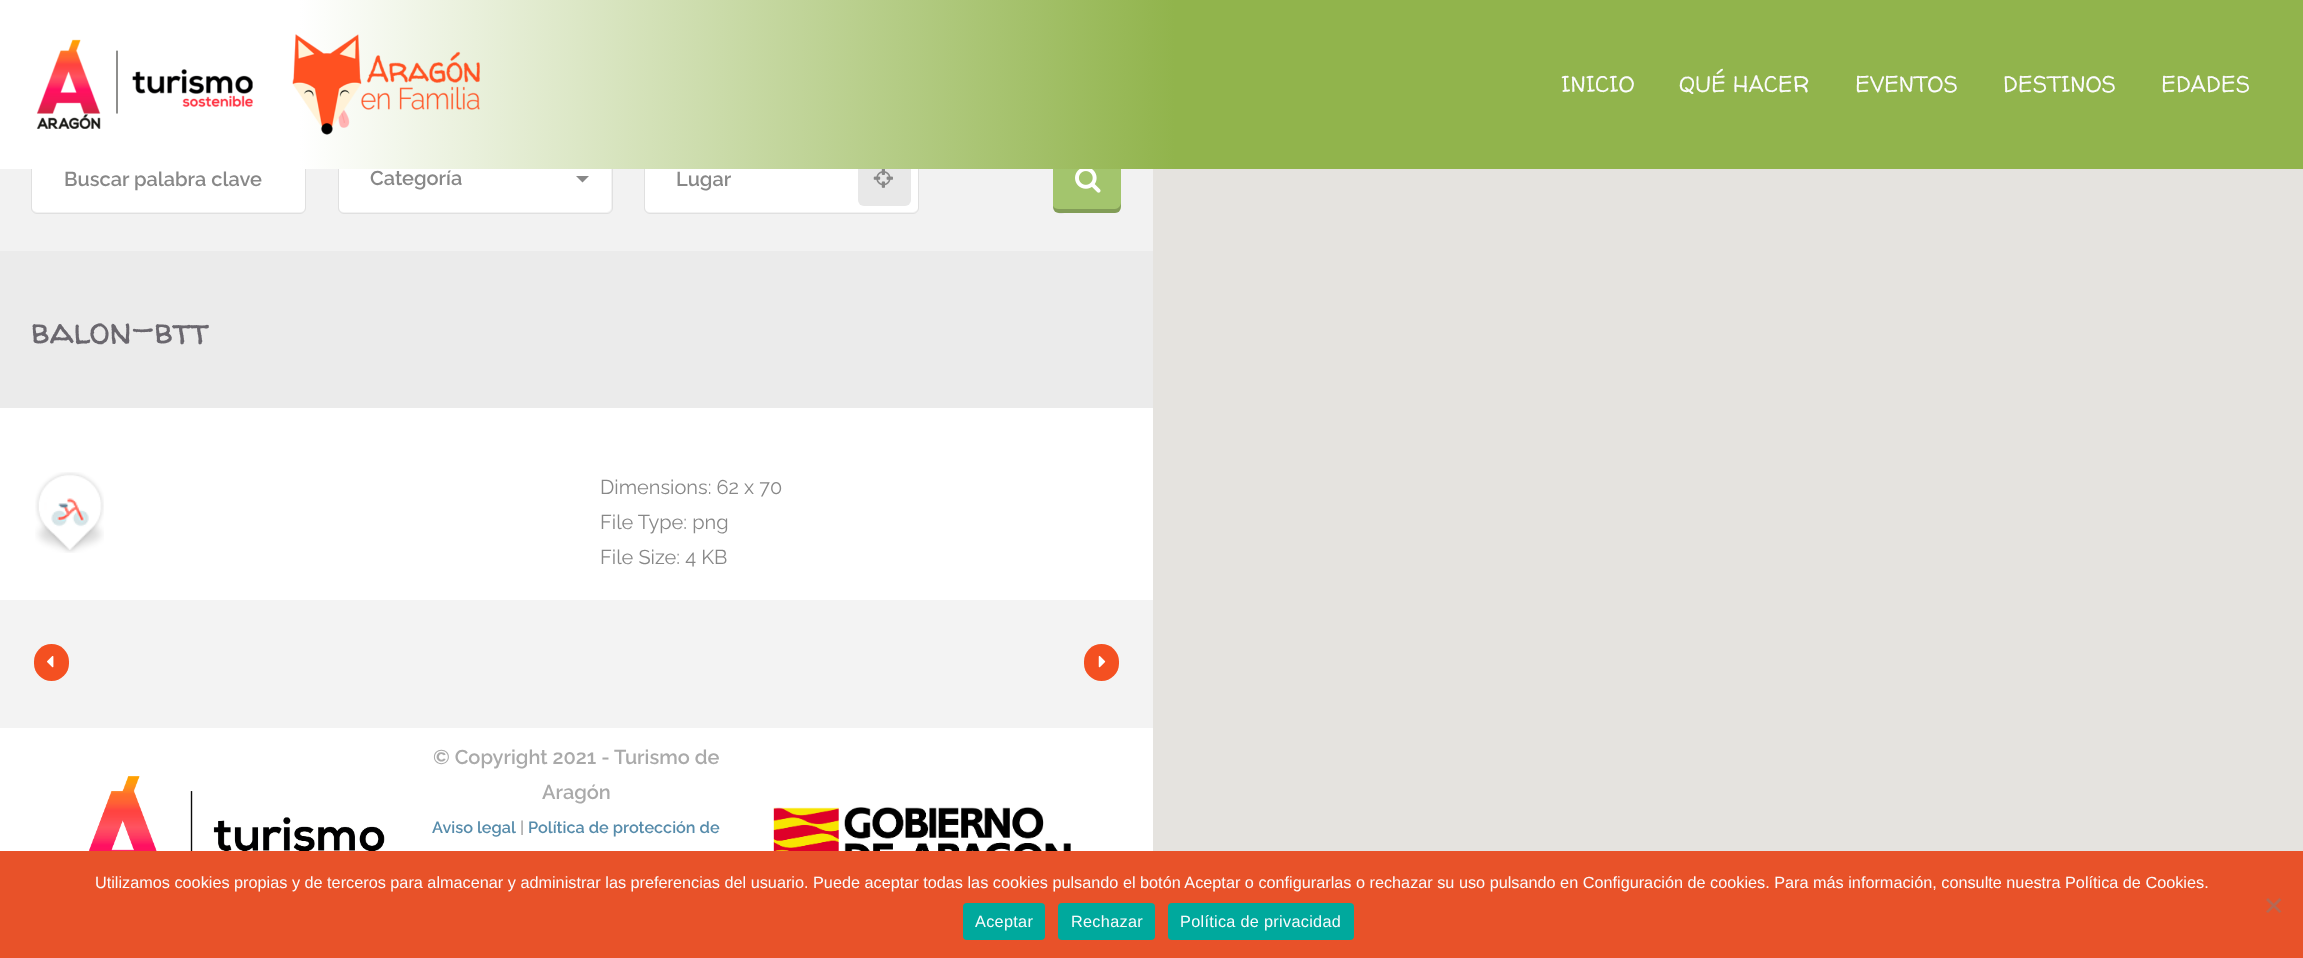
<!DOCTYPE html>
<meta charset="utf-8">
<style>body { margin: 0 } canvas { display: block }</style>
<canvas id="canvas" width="2303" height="958"></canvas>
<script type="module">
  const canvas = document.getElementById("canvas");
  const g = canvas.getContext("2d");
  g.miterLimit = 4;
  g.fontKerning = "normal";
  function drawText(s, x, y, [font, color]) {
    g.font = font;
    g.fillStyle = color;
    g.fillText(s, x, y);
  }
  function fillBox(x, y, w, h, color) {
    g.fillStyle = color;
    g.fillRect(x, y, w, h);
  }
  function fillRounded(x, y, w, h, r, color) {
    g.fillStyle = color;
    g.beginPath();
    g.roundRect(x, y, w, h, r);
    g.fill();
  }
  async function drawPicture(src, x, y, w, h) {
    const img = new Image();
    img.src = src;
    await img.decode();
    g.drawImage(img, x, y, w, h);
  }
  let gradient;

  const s1 = ["22.5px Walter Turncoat", "#FBFBFD"];
  const s2 = ["600 20px Raleway", "#888888"];
  const s3 = ["37.5px Walter Turncoat", "#6A676E"];
  const s4 = ["20px Raleway", "#888888"];
  const s5 = ["600 20px Raleway", "#AAAAAA"];
  const s6 = ["600 16.25px Raleway", "#578CAB"];
  const s7 = ["600 16.25px Raleway", "#AAAAAA"];
  const s8 = ["16.25px Liberation Sans", "#FBFBFD"];

  fillBox(0, 0, 2303, 958, "#E5E3DF");
  fillBox(0, 169, 1153, 82, "#F2F2F2");
  g.fillStyle = "#FFFFFF";
  g.beginPath();
  g.moveTo(38, 146);
  g.lineTo(300, 146);
  g.bezierCurveTo(303, 146, 305, 147, 305, 148);
  g.lineTo(305, 208);
  g.bezierCurveTo(305, 210, 303, 212, 300, 212);
  g.lineTo(38, 212);
  g.bezierCurveTo(35, 212, 32, 210, 32, 208);
  g.lineTo(32, 148);
  g.bezierCurveTo(32, 147, 35, 146, 38, 146);
  g.closePath();
  g.fill();
  g.beginPath();
  g.roundRect(31.5, 141.5, 274, 72, 5.5);
  g.strokeStyle = "#E0E0E0";
  g.stroke();
  g.beginPath();
  g.moveTo(344, 146);
  g.lineTo(606, 146);
  g.bezierCurveTo(609, 146, 611, 147, 611, 148);
  g.lineTo(611, 208);
  g.bezierCurveTo(611, 210, 609, 212, 606, 212);
  g.lineTo(344, 212);
  g.bezierCurveTo(341, 212, 339, 210, 339, 208);
  g.lineTo(339, 148);
  g.bezierCurveTo(339, 147, 341, 146, 344, 146);
  g.closePath();
  g.fill();
  g.beginPath();
  g.roundRect(338.5, 141.5, 274, 72, 5.5);
  g.stroke();
  g.beginPath();
  g.moveTo(650, 146);
  g.lineTo(912, 146);
  g.bezierCurveTo(915, 146, 918, 147, 918, 148);
  g.lineTo(918, 208);
  g.bezierCurveTo(918, 210, 915, 212, 912, 212);
  g.lineTo(650, 212);
  g.bezierCurveTo(647, 212, 645, 210, 645, 208);
  g.lineTo(645, 148);
  g.bezierCurveTo(645, 147, 647, 146, 650, 146);
  g.closePath();
  g.fill();
  g.beginPath();
  g.roundRect(644.5, 141.5, 274, 72, 5.5);
  g.stroke();
  fillRounded(858, 153, 53, 53, 6, "#E8E8E8");
  fillRounded(1053, 144, 68, 69, 6, "#A3C56D");
  gradient = g.createLinearGradient(0, 84, 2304, 84);
  gradient.addColorStop(0.13, "#FFFFFF");
  gradient.addColorStop(0.51, "#91B44C");
  gradient.addColorStop(1, "#91B44C");
  g.fillStyle = gradient;
  g.fillRect(0, 0, 2303, 169);
  await drawPicture("pic1.png", 36, 34, 444, 101);
  drawText("INICIO", 1561, 92, s1);
  drawText("QUÉ HACER", 1679, 92, s1);
  drawText("EVENTOS", 1855, 92, s1);
  drawText("DESTINOS", 2003, 92, s1);
  drawText("EDADES", 2161, 92, s1);
  fillBox(0, 408, 1153, 192, "#FFFFFF");
  drawText("Buscar palabra clave", 64, 186, s2);
  drawText("Categoría", 370, 185, s2);
  g.beginPath();
  g.moveTo(576, 176);
  g.lineTo(589, 176);
  g.lineTo(582.5, 182.5);
  g.closePath();
  g.fill();
  drawText("Lugar", 676, 186, s2);
  await drawPicture("pic2.png", 873, 169, 20, 19);
  g.fillStyle = "rgba(0, 0, 0, 0.2)";
  g.beginPath();
  g.moveTo(1053, 206);
  g.bezierCurveTo(1053, 215, 1061, 213, 1068, 213);
  g.lineTo(1106, 213);
  g.bezierCurveTo(1118, 213, 1121, 215, 1121, 202);
  g.bezierCurveTo(1121, 206, 1118, 209, 1115, 209);
  g.lineTo(1059, 209);
  g.bezierCurveTo(1056, 209, 1054, 208, 1053, 206);
  g.closePath();
  g.fill();
  await drawPicture("pic3.png", 1075, 169, 26, 24);
  fillBox(0, 251, 1153, 157, "#EBEBEB");
  drawText("balon-btt", 31, 344, s3);
  await drawPicture("pic4.png", 35, 472, 69, 81);
  drawText("Dimensions: 62 x 70", 600, 494, s4);
  drawText("File Type: png", 600, 529, s4);
  drawText("File Size: 4 KB", 600, 564, s4);
  fillBox(0, 600, 1153, 128, "#F3F3F3");
  fillRounded(34, 644, 35, 37, 17.5, "#F45021");
  await drawPicture("pic5.png", 47, 655, 7, 13);
  fillRounded(1084, 644, 35, 37, 17.5, "#F45021");
  await drawPicture("pic6.png", 1098, 655, 8, 13);
  fillBox(0, 728, 1153, 123, "#FFFFFF");
  await drawPicture("pic7.png", 88, 776, 297, 75);
  drawText("© Copyright 2021 - Turismo de", 433, 764, s5);
  drawText("Aragón", 542, 799, s5);
  drawText("Aviso legal", 432, 833, s6);
  drawText("|", 520, 833, s7);
  drawText("Política de protección de", 528, 833, s6);
  await drawPicture("pic8.png", 773, 807, 298, 44);
  fillBox(0, 851, 2303, 107, "#E85229");
  drawText("Utilizamos cookies propias y de terceros para almacenar y administrar las preferencias del usuario. Puede aceptar todas las cookies pulsando el botón Aceptar o configurarlas o rechazar su uso pulsando en Configuración de cookies. Para más información, consulte nuestra Política de Cookies.", 95, 888, s8);
  g.fillStyle = "#B46955";
  g.beginPath();
  g.moveTo(2279.5, 898);
  g.lineTo(2281.5, 900);
  g.lineTo(2268, 913);
  g.lineTo(2266, 911.5);
  g.closePath();
  g.fill();
  g.beginPath();
  g.moveTo(2266, 900);
  g.lineTo(2268, 898);
  g.lineTo(2281.5, 911.5);
  g.lineTo(2279.5, 913);
  g.closePath();
  g.fill();
  fillRounded(963, 903, 82, 37, 4, "#00A99D");
  g.letterSpacing = "0.3px";
  drawText("Aceptar", 975, 927, s8);
  fillRounded(1058, 903, 97, 37, 4, "#00A99D");
  drawText("Rechazar", 1071, 927, s8);
  fillRounded(1168, 903, 186, 37, 4, "#00A99D");
  drawText("Política de privacidad", 1180, 927, s8);
</script>
